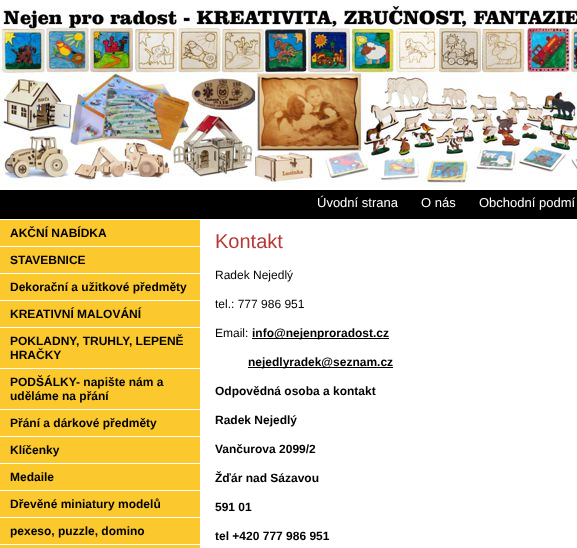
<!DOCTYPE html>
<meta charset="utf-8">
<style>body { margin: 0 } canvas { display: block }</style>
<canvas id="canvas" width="577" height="548"></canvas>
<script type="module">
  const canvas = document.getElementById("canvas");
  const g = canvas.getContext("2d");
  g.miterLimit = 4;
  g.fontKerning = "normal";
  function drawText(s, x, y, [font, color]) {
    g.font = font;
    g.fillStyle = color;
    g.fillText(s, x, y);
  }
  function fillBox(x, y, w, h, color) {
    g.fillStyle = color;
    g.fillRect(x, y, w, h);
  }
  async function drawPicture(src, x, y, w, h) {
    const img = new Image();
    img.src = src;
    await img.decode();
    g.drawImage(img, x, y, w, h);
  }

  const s1 = ["13px Liberation Sans", "#FFFFFF"];
  const s2 = ["bold 12px Liberation Sans", "#000000"];
  const s3 = ["20px Liberation Sans", "#B73736"];
  const s4 = ["12px Liberation Sans", "#000000"];

  fillBox(0, 0, 577, 548, "#FFFFFF");
  await drawPicture("pic1.png", 0, 1, 577, 189);
  fillBox(0, 190, 577, 29, "#000000");
  drawText("Úvodní strana", 317, 207, s1);
  drawText("O nás", 421, 207, s1);
  drawText("Obchodní podmí", 479, 207, s1);
  fillBox(0, 220, 200, 26, "#FBC82D");
  drawText("AKČNÍ NABÍDKA", 10, 237, s2);
  fillBox(0, 247, 200, 26, "#FBC82D");
  drawText("STAVEBNICE", 10, 264, s2);
  fillBox(0, 274, 200, 26, "#FBC82D");
  drawText("Dekorační a užitkové předměty", 10, 291, s2);
  fillBox(0, 301, 200, 26, "#FBC82D");
  drawText("KREATIVNÍ MALOVÁNÍ", 10, 318, s2);
  fillBox(0, 328, 200, 40, "#FBC82D");
  drawText("POKLADNY, TRUHLY, LEPENĚ", 10, 345, s2);
  drawText("HRAČKY", 10, 359, s2);
  fillBox(0, 369, 200, 40, "#FBC82D");
  drawText("PODŠÁLKY- napište nám a", 10, 386, s2);
  drawText("uděláme na přání", 10, 400, s2);
  fillBox(0, 410, 200, 26, "#FBC82D");
  drawText("Přání a dárkové předměty", 10, 427, s2);
  fillBox(0, 437, 200, 26, "#FBC82D");
  drawText("Klíčenky", 10, 454, s2);
  fillBox(0, 464, 200, 26, "#FBC82D");
  drawText("Medaile", 10, 481, s2);
  fillBox(0, 491, 200, 26, "#FBC82D");
  drawText("Dřevěné miniatury modelů", 10, 508, s2);
  fillBox(0, 518, 200, 26, "#FBC82D");
  drawText("pexeso, puzzle, domino", 10, 535, s2);
  fillBox(0, 545, 200, 3, "#FBC82D");
  drawText("Kontakt", 215, 248, s3);
  drawText("Radek Nejedlý", 215, 279, s4);
  drawText("tel.: 777 986 951", 215, 308, s4);
  drawText("Email:", 215, 337, s4);
  fillBox(252, 338, 137, 1, "#000000");
  drawText("info@nejenproradost.cz", 252, 337, s2);
  fillBox(248, 367, 145, 1, "#000000");
  drawText("nejedlyradek@seznam.cz", 248, 366, s2);
  drawText("Odpovědná osoba a kontakt", 215, 395, s2);
  drawText("Radek Nejedlý", 215, 424, s2);
  drawText("Vančurova 2099/2", 215, 453, s2);
  drawText("Žďár nad Sázavou", 215, 482, s2);
  drawText("591 01", 215, 511, s2);
  drawText("tel +420 777 986 951", 215, 540, s2);
</script>
